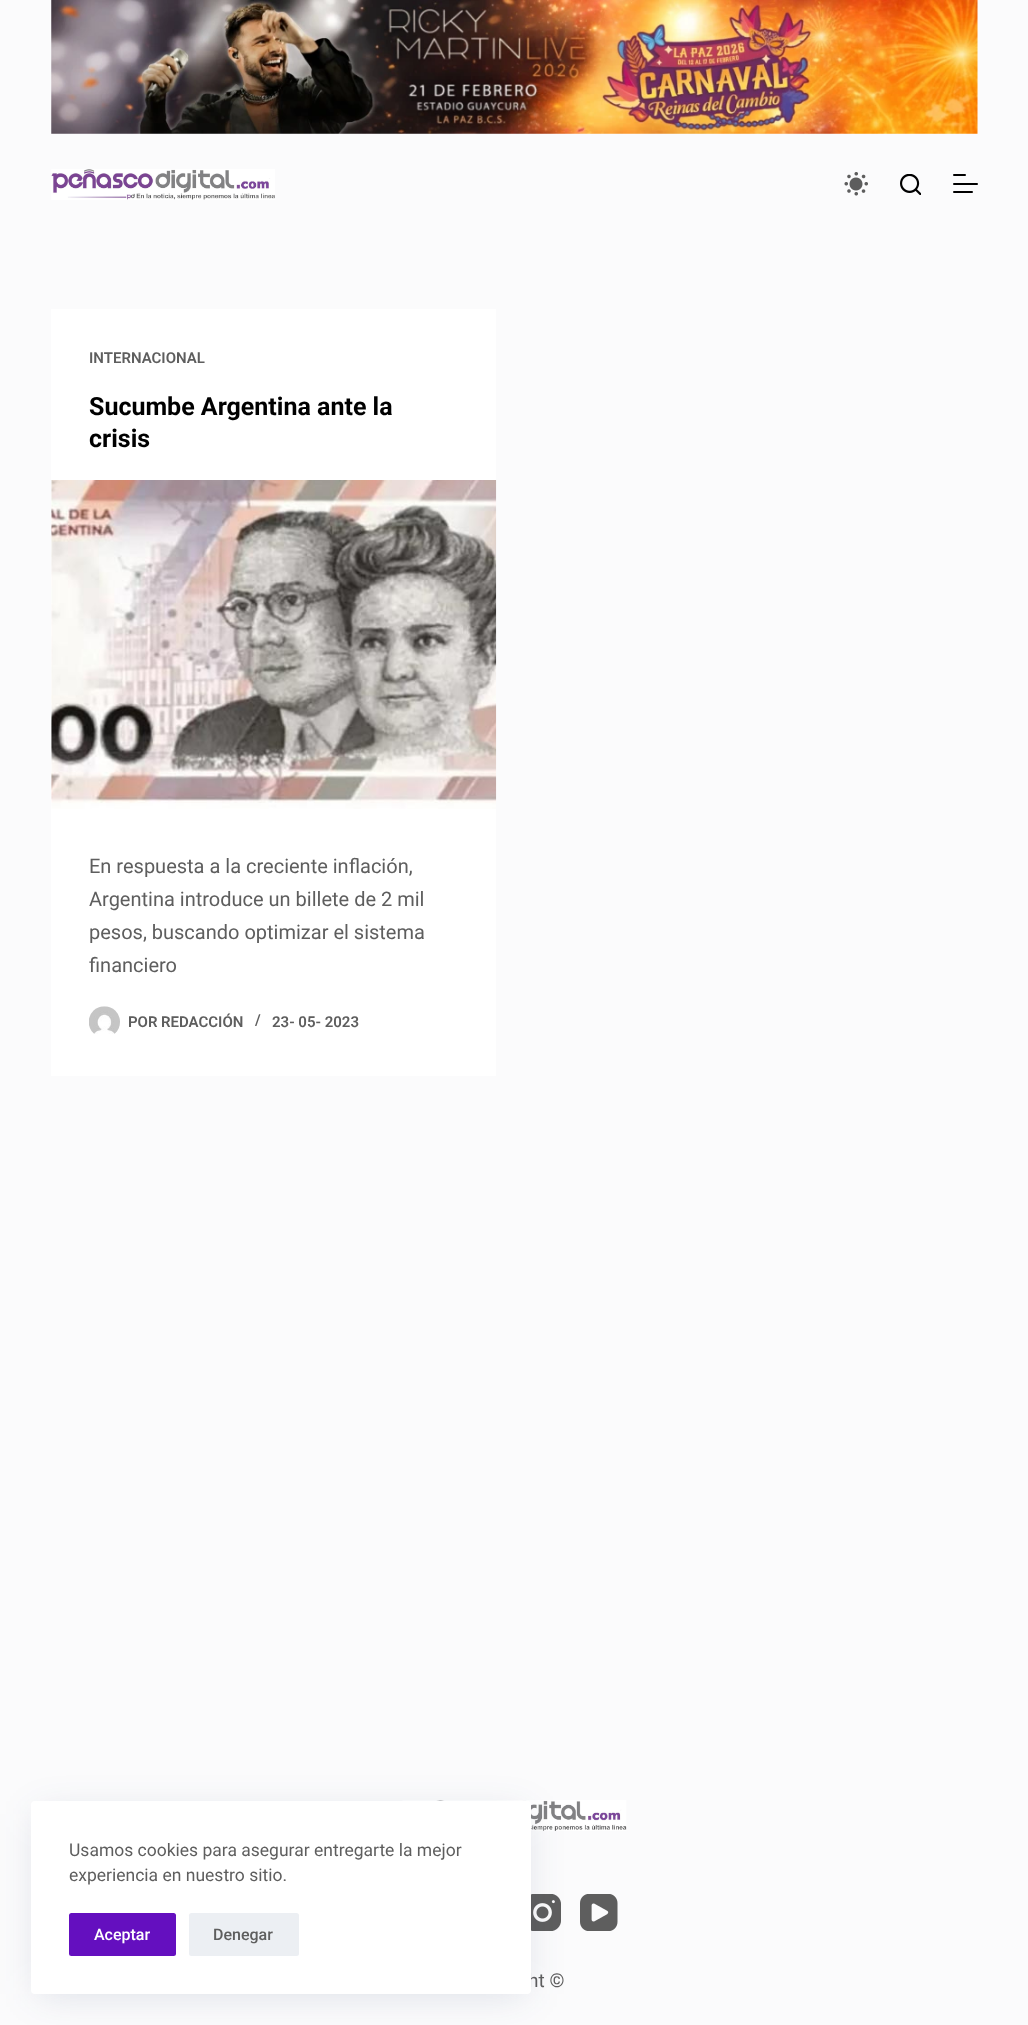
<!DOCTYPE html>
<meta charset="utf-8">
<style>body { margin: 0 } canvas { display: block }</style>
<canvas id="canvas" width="1028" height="2025"></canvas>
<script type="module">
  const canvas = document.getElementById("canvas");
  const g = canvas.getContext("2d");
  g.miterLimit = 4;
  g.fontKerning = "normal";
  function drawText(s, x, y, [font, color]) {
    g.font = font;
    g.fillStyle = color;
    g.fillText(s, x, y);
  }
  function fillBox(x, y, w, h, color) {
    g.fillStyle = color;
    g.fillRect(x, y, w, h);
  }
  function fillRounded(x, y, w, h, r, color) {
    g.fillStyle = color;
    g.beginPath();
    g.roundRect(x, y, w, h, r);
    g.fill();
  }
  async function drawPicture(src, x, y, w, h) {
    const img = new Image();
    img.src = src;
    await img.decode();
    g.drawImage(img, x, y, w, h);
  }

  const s1 = ["600 15px Roboto", "#5E5E5E"];
  const s2 = ["bold 25px Roboto", "#000000"];
  const s3 = ["20px Roboto", "#5E5E5E"];
  const s4 = ["19px Roboto", "#5E5E5E"];
  const s5 = ["17.5px Roboto", "#5E5E5E"];
  const s6 = ["500 16px Roboto", "#FFFFFF"];
  const s7 = ["500 16px Roboto", "#5E5E5E"];

  fillBox(0, 0, 1028, 2025, "#FBFBFC");
  await drawPicture("pic1.png", 51, 0, 927, 134);
  await drawPicture("pic2.png", 51, 169, 224, 31);
  await drawPicture("pic3.png", 844, 172, 24, 24);
  await drawPicture("pic4.png", 900, 174, 21, 21);
  fillRounded(953, 174, 13, 2, 1, "#000000");
  fillRounded(953, 183, 25, 2, 1, "#000000");
  fillRounded(953, 191, 20, 2, 1, "#000000");
  fillBox(51, 309, 445, 767, "#FFFFFF");
  drawText("INTERNACIONAL", 89, 363, s1);
  drawText("Sucumbe Argentina ante la", 89, 415, s2);
  drawText("crisis", 89, 447, s2);
  await drawPicture("pic5.png", 51, 480, 446, 329);
  drawText("En respuesta a la creciente inflación,", 89, 873, s3);
  drawText("Argentina introduce un billete de 2 mil", 89, 906, s3);
  drawText("pesos, buscando optimizar el sistema", 89, 939, s3);
  drawText("financiero", 89, 972, s3);
  await drawPicture("pic6.png", 89, 1006, 31, 28);
  drawText("POR", 128, 1027, s1);
  drawText("REDACCIÓN", 161, 1027, s1);
  drawText("/", 255, 1025, s1);
  drawText("23- 05- 2023", 272, 1027, s1);
  await drawPicture("pic7.png", 402, 1800, 225, 31);
  await drawPicture("pic8.png", 531, 1894, 30, 37);
  await drawPicture("pic9.png", 580, 1894, 38, 37);
  drawText("ht ©", 528, 1987, s4);
  g.fillStyle = "rgba(34, 56, 101, 0.15)";
  g.filter = "blur(19px)";
  g.beginPath();
  g.rect(38, 1814, 487, 180);
  g.fill();
  g.filter = "none";
  fillRounded(31, 1801, 500, 193, 4, "#FFFFFF");
  drawText("Usamos cookies para asegurar entregarte la mejor", 69, 1856, s5);
  drawText("experiencia en nuestro sitio.", 69, 1881, s5);
  fillRounded(69, 1913, 107, 43, 2.5, "#640FBF");
  drawText("Aceptar", 94, 1940, s6);
  fillRounded(189, 1913, 110, 43, 2.5, "#ECEFF3");
  drawText("Denegar", 213, 1940, s7);
</script>
